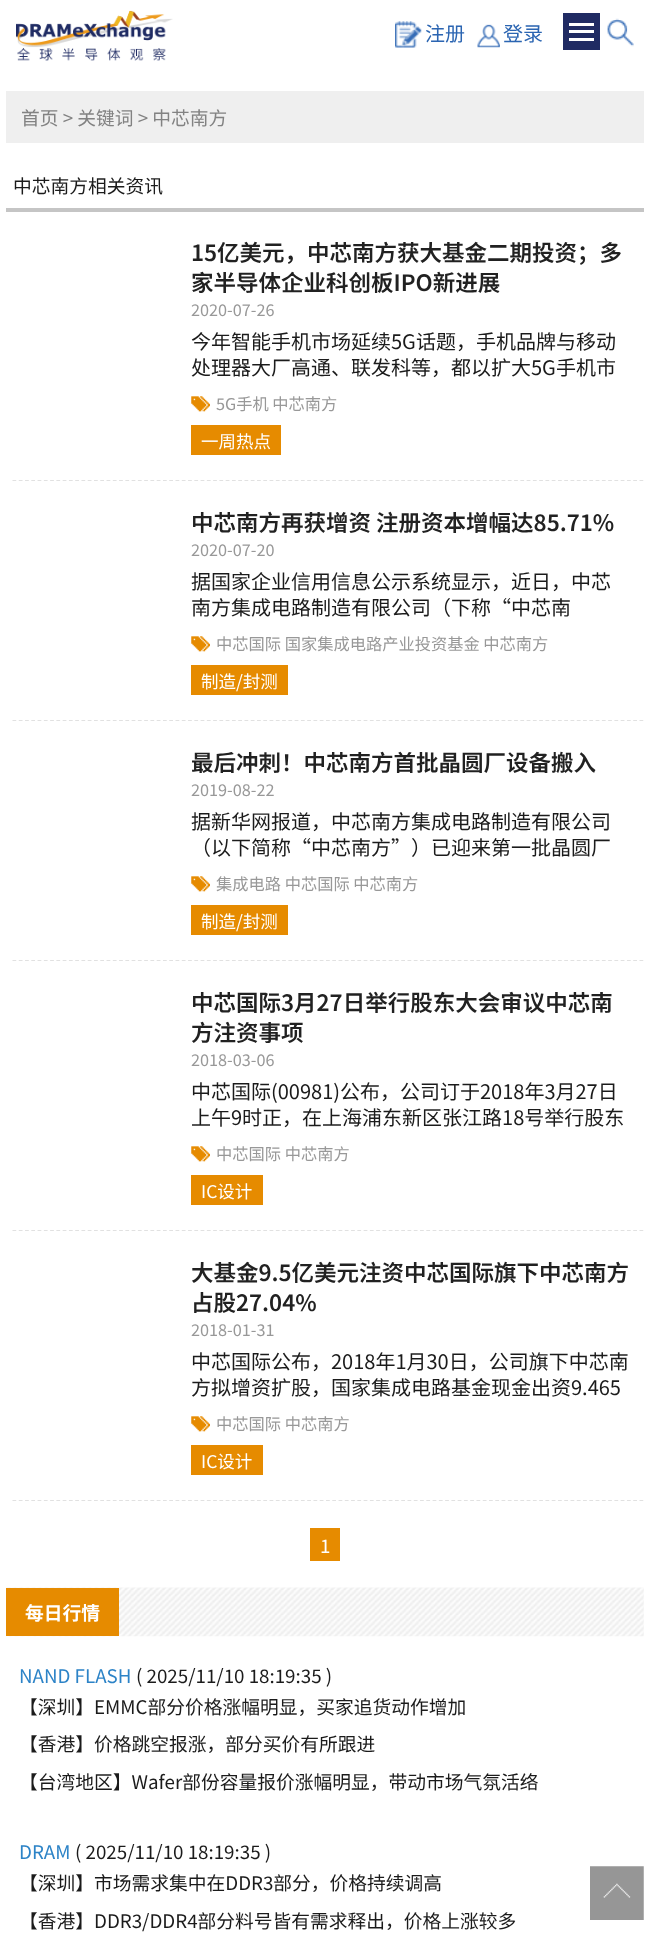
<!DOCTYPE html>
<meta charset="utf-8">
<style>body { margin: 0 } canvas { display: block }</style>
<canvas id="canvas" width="649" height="1957"></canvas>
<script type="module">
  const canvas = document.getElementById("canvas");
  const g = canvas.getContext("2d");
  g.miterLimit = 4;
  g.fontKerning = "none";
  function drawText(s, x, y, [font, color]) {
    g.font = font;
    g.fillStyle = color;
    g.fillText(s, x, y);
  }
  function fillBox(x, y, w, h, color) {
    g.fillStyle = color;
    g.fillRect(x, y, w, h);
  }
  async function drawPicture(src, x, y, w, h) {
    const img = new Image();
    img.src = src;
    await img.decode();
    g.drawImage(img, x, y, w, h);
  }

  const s1 = ["20px Noto Sans SC", "#2B65B2"];
  const s2 = ["18.75px Noto Sans SC", "#828282"];
  const s3 = ["18.75px Noto Sans SC", "#1B1B1B"];
  const s4 = ["600 22.5px Noto Sans SC", "#212121"];
  const s5 = ["16.25px Noto Sans SC", "#989898"];
  const s6 = ["20px Noto Sans SC", "#1B1B1B"];
  const s7 = ["17.5px Noto Sans SC", "#FFFFFF"];
  const s8 = ["18.75px Noto Sans SC", "#FFFFFF"];
  const s9 = ["bold 18.75px Noto Sans SC", "#FFFFFF"];
  const s10 = ["18.75px Noto Sans SC", "#2C83C7"];

  fillBox(0, 0, 649, 1957, "#FFFFFF");
  await drawPicture("pic1.png", 16, 10, 157, 51);
  await drawPicture("pic2.png", 395, 21, 27, 27);
  drawText("注册", 425, 41, s1);
  await drawPicture("pic3.png", 477, 24, 23, 24);
  drawText("登录", 503, 41, s1);
  fillBox(563, 13, 37, 37, "#202B63");
  fillBox(569, 23, 25, 3, "#FFFFFF");
  fillBox(569, 30, 25, 3, "#FFFFFF");
  fillBox(569, 38, 25, 3, "#FFFFFF");
  await drawPicture("pic4.png", 607, 18, 27, 29);
  fillBox(6, 91, 638, 52, "#EFEFEF");
  drawText("首页 > 关键词 > 中芯南方", 21, 125, s2);
  fillBox(6, 208, 638, 4, "#C5C5C5");
  drawText("中芯南方相关资讯", 13, 193, s3);
  g.save();
  g.beginPath();
  g.rect(6, 236, 638, 1327);
  g.clip();
  g.beginPath();
  g.moveTo(12.5, 480.5);
  g.lineTo(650, 480.5);
  g.strokeStyle = "#E1E1E1";
  g.lineWidth = 1.2;
  g.setLineDash([3.75, 2.52]);
  g.stroke();
  g.restore();
  drawText("15亿美元，中芯南方获大基金二期投资；多", 191, 261, s4);
  drawText("家半导体企业科创板IPO新进展", 191, 291, s4);
  drawText("2020-07-26", 191, 316, s5);
  drawText("今年智能手机市场延续5G话题，手机品牌与移动", 191, 349, s6);
  drawText("处理器大厂高通、联发科等，都以扩大5G手机市", 191, 375, s6);
  await drawPicture("pic5.png", 191, 396, 19, 16);
  drawText("5G手机 中芯南方", 216, 410, s5);
  fillBox(191, 425, 90, 30, "#E68B00");
  drawText("一周热点", 201, 448, s7);
  g.save();
  g.beginPath();
  g.rect(6, 236, 638, 1327);
  g.clip();
  g.beginPath();
  g.moveTo(12.5, 720.5);
  g.lineTo(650, 720.5);
  g.strokeStyle = "#E1E1E1";
  g.lineWidth = 1.2;
  g.setLineDash([3.75, 2.52]);
  g.stroke();
  g.restore();
  drawText("中芯南方再获增资 注册资本增幅达85.71%", 191, 531, s4);
  drawText("2020-07-20", 191, 556, s5);
  drawText("据国家企业信用信息公示系统显示，近日，中芯", 191, 589, s6);
  drawText("南方集成电路制造有限公司（下称“中芯南", 191, 615, s6);
  await drawPicture("pic5.png", 191, 636, 19, 16);
  drawText("中芯国际 国家集成电路产业投资基金 中芯南方", 216, 650, s5);
  fillBox(191, 665, 97, 30, "#E68B00");
  drawText("制造/封测", 201, 688, s7);
  g.save();
  g.beginPath();
  g.rect(6, 236, 638, 1327);
  g.clip();
  g.beginPath();
  g.moveTo(12.5, 960.5);
  g.lineTo(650, 960.5);
  g.strokeStyle = "#E1E1E1";
  g.lineWidth = 1.2;
  g.setLineDash([3.75, 2.52]);
  g.stroke();
  g.restore();
  drawText("最后冲刺！中芯南方首批晶圆厂设备搬入", 191, 771, s4);
  drawText("2019-08-22", 191, 796, s5);
  drawText("据新华网报道，中芯南方集成电路制造有限公司", 191, 829, s6);
  drawText("（以下简称“中芯南方”）已迎来第一批晶圆厂", 191, 855, s6);
  await drawPicture("pic5.png", 191, 876, 19, 16);
  drawText("集成电路 中芯国际 中芯南方", 216, 890, s5);
  fillBox(191, 905, 97, 30, "#E68B00");
  drawText("制造/封测", 201, 928, s7);
  g.save();
  g.beginPath();
  g.rect(6, 236, 638, 1327);
  g.clip();
  g.beginPath();
  g.moveTo(12.5, 1230.5);
  g.lineTo(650, 1230.5);
  g.strokeStyle = "#E1E1E1";
  g.lineWidth = 1.2;
  g.setLineDash([3.75, 2.52]);
  g.stroke();
  g.restore();
  drawText("中芯国际3月27日举行股东大会审议中芯南", 191, 1011, s4);
  drawText("方注资事项", 191, 1041, s4);
  drawText("2018-03-06", 191, 1066, s5);
  drawText("中芯国际(00981)公布，公司订于2018年3月27日", 191, 1099, s6);
  drawText("上午9时正，在上海浦东新区张江路18号举行股东", 191, 1125, s6);
  await drawPicture("pic5.png", 191, 1146, 19, 16);
  drawText("中芯国际 中芯南方", 216, 1160, s5);
  fillBox(191, 1175, 72, 30, "#E68B00");
  drawText("IC设计", 201, 1198, s7);
  g.save();
  g.beginPath();
  g.rect(6, 236, 638, 1327);
  g.clip();
  g.beginPath();
  g.moveTo(12.5, 1500.5);
  g.lineTo(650, 1500.5);
  g.strokeStyle = "#E1E1E1";
  g.lineWidth = 1.2;
  g.setLineDash([3.75, 2.52]);
  g.stroke();
  g.restore();
  drawText("大基金9.5亿美元注资中芯国际旗下中芯南方", 191, 1281, s4);
  drawText("占股27.04%", 191, 1311, s4);
  drawText("2018-01-31", 191, 1336, s5);
  drawText("中芯国际公布，2018年1月30日，公司旗下中芯南", 191, 1369, s6);
  drawText("方拟增资扩股，国家集成电路基金现金出资9.465", 191, 1395, s6);
  await drawPicture("pic5.png", 191, 1416, 19, 16);
  drawText("中芯国际 中芯南方", 216, 1430, s5);
  fillBox(191, 1445, 72, 30, "#E68B00");
  drawText("IC设计", 201, 1468, s7);
  fillBox(310, 1528, 30, 33, "#E68B00");
  drawText("1", 320, 1553, s8);
  await drawPicture("pic6.png", 6, 1587, 638, 50);
  fillBox(6, 1588, 113, 48, "#E68B00");
  drawText("每日行情", 25, 1620, s9);
  drawText("NAND FLASH", 19, 1683, s10);
  drawText("( 2025/11/10 18:19:35 )", 136, 1683, s3);
  drawText("【深圳】EMMC部分价格涨幅明显，买家追货动作增加", 19, 1714, s3);
  drawText("【香港】价格跳空报涨，部分买价有所跟进", 19, 1751, s3);
  drawText("【台湾地区】Wafer部份容量报价涨幅明显，带动市场气氛活络", 19, 1789, s3);
  drawText("DRAM", 19, 1859, s10);
  drawText("( 2025/11/10 18:19:35 )", 75, 1859, s3);
  drawText("【深圳】市场需求集中在DDR3部分，价格持续调高", 19, 1890, s3);
  drawText("【香港】DDR3/DDR4部分料号皆有需求释出，价格上涨较多", 19, 1928, s3);
  await drawPicture("pic7.png", 590, 1866, 54, 54);
</script>
